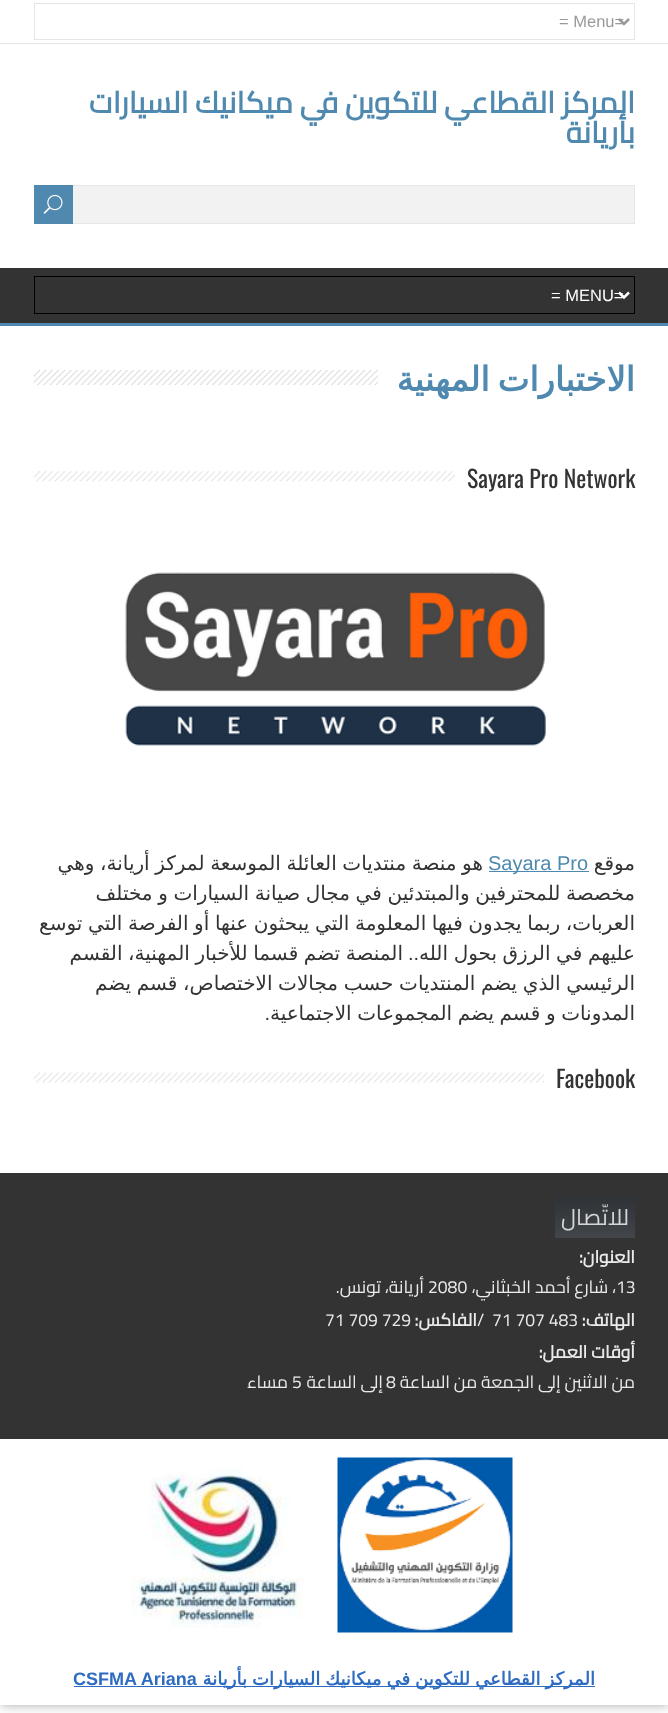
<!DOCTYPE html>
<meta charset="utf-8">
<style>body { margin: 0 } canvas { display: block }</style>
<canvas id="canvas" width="668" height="1713"></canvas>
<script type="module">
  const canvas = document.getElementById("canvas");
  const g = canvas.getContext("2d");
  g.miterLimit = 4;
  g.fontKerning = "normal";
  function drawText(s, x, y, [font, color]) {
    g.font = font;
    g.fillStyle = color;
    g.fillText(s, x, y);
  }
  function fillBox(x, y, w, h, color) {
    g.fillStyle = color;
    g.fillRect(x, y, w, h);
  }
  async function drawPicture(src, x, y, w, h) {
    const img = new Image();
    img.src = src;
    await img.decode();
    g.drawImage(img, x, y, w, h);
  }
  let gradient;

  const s1 = ["16.5px Liberation Sans", "#999999"];
  const s2 = ["bold 30px Cairo", "#4F89AF"];
  const s3 = ["16.5px Liberation Sans", "#FFFFFF"];
  const s4 = ["bold 33.75px DejaVu Sans", "#4F89AF"];
  const s5 = ["23.75px Oswald", "#333333"];
  const s6 = ["20px DejaVu Sans", "#333333"];
  const s7 = ["20px Liberation Sans", "#4F89AF"];
  const s8 = ["20px Liberation Sans", "#333333"];
  const s9 = ["22.5px Cairo", "#D5D6D6"];
  const s10 = ["bold 17.5px Cairo", "#EAEAEA"];
  const s11 = ["17.5px Cairo", "#EAEAEA"];
  const s12 = ["bold 18.05px DejaVu Sans", "#2E6CC2"];
  const s13 = ["bold 18.05px Liberation Sans", "#2E6CC2"];

  fillBox(0, 0, 668, 1713, "#FFFFFF");
  g.save();
  g.beginPath();
  g.rect(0, 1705, 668, 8);
  g.clip();
  g.fillStyle = "#AAAAAA";
  g.filter = "blur(6px)";
  g.beginPath();
  g.rect(0, 0, 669, 1705);
  g.fill();
  g.filter = "none";
  g.restore();
  fillBox(0, 43, 668, 1, "#E6E6E6");
  g.strokeStyle = "#E6E6E6";
  g.strokeRect(34.5, 3.5, 600, 36);
  g.beginPath();
  g.moveTo(619, 19);
  g.lineTo(624, 24);
  g.lineTo(629, 19);
  g.strokeStyle = "#999999";
  g.lineWidth = 2.5;
  g.stroke();
  drawText("= Menu=", 559, 27, s1);
  g.direction = "rtl";
  drawText("المركز القطاعي للتكوين في ميكانيك السيارات", 635, 113, s2);
  drawText("بأريانة", 635, 143, s2);
  fillBox(73, 186, 561, 37, "#F2F2F2");
  g.strokeStyle = "#E6E6E6";
  g.lineWidth = 1;
  g.strokeRect(38.5, 185.5, 596, 38);
  fillBox(34, 185, 39, 39, "#4F89AF");
  await drawPicture("pic1.png", 43, 194, 20, 20);
  fillBox(0, 268, 668, 55, "#333333");
  fillBox(0, 323, 668, 3, "#4F89AF");
  g.strokeStyle = "#000000";
  g.strokeRect(34.5, 276.5, 600, 37);
  g.beginPath();
  g.moveTo(619, 292.5);
  g.lineTo(624, 297.5);
  g.lineTo(629, 292.5);
  g.strokeStyle = "#FFFFFF";
  g.lineWidth = 2.5;
  g.stroke();
  g.direction = "ltr";
  drawText("= MENU=", 551, 301, s3);
  await drawPicture("pic2.png", 33, 370, 345, 15);
  g.wordSpacing = "-3px";
  g.direction = "rtl";
  drawText("الاختبارات المهنية", 635, 391, s4);
  await drawPicture("pic3.png", 33, 471, 422, 11);
  g.wordSpacing = "0px";
  g.direction = "ltr";
  drawText("Sayara Pro Network", 467, 488, s5);
  await drawPicture("pic4.png", 125, 572, 421, 174);
  g.direction = "rtl";
  drawText("موقع", 635, 870, s6);
  fillBox(489, 871, 100, 1, "#4F89AF");
  g.direction = "ltr";
  drawText("Sayara Pro", 488, 870, s7);
  g.wordSpacing = "-0.75px";
  g.direction = "rtl";
  drawText("هو منصة منتديات العائلة الموسعة لمركز أريانة، وهي", 483, 870, s6);
  drawText("مخصصة للمحترفين والمبتدئين في مجال صيانة السيارات و مختلف", 635, 900, s6);
  drawText("العربات، ربما يجدون فيها المعلومة التي يبحثون عنها أو الفرصة التي توسع", 635, 930, s6);
  drawText("عليهم في الرزق بحول الله", 635, 960, s6);
  g.wordSpacing = "0px";
  drawText("..", 419, 960, s8);
  g.wordSpacing = "-0.75px";
  drawText("المنصة تضم قسما للأخبار المهنية، القسم", 403, 960, s6);
  drawText("الرئيسي الذي يضم المنتديات حسب مجالات الاختصاص، قسم يضم", 635, 990, s6);
  drawText("المدونات و قسم يضم المجموعات الاجتماعية", 635, 1020, s6);
  g.wordSpacing = "0px";
  drawText(".", 270, 1020, s8);
  await drawPicture("pic5.png", 33, 1072, 511, 11);
  g.direction = "ltr";
  drawText("Facebook", 556, 1088, s5);
  fillBox(0, 1173, 668, 266, "#333333");
  gradient = g.createLinearGradient(595, 1196, 595, 1238);
  gradient.addColorStop(0, "#2E3236");
  gradient.addColorStop(1, "#42464A");
  g.fillStyle = gradient;
  g.fillRect(555, 1196, 80, 42);
  g.direction = "rtl";
  drawText("للاتّصال", 629, 1225, s9);
  drawText("العنوان:", 635, 1263, s10);
  g.direction = "ltr";
  drawText("13", 616, 1293, s11);
  g.direction = "rtl";
  drawText("، شارع أحمد الخبثاني،", 616, 1293, s11);
  g.direction = "ltr";
  drawText("2080", 428, 1293, s11);
  g.direction = "rtl";
  drawText("أريانة، تونس.", 424, 1293, s11);
  drawText("الهاتف:", 635, 1326, s10);
  g.direction = "ltr";
  drawText("71 707 483", 492, 1326, s11);
  drawText("/", 477, 1326, s11);
  g.direction = "rtl";
  drawText("الفاكس:", 477, 1326, s10);
  g.direction = "ltr";
  drawText("71 709 729", 325, 1326, s11);
  g.direction = "rtl";
  drawText("أوقات العمل:", 635, 1358, s10);
  drawText("من الاثنين إلى الجمعة من الساعة", 635, 1388, s11);
  g.direction = "ltr";
  drawText("8", 386, 1388, s11);
  g.direction = "rtl";
  drawText("إلى الساعة", 383, 1388, s11);
  g.direction = "ltr";
  drawText("5", 292, 1388, s11);
  g.direction = "rtl";
  drawText("مساء", 288, 1388, s11);
  await drawPicture("pic6.png", 337, 1457, 176, 176);
  await drawPicture("pic7.png", 131, 1468, 173, 160);
  fillBox(74, 1686, 521, 1, "#2E6CC2");
  g.wordSpacing = "-0.75px";
  drawText("المركز القطاعي للتكوين في ميكانيك السيارات بأريانة", 595, 1685, s12);
  g.wordSpacing = "0px";
  g.direction = "ltr";
  drawText("CSFMA Ariana", 73, 1685, s13);
</script>
